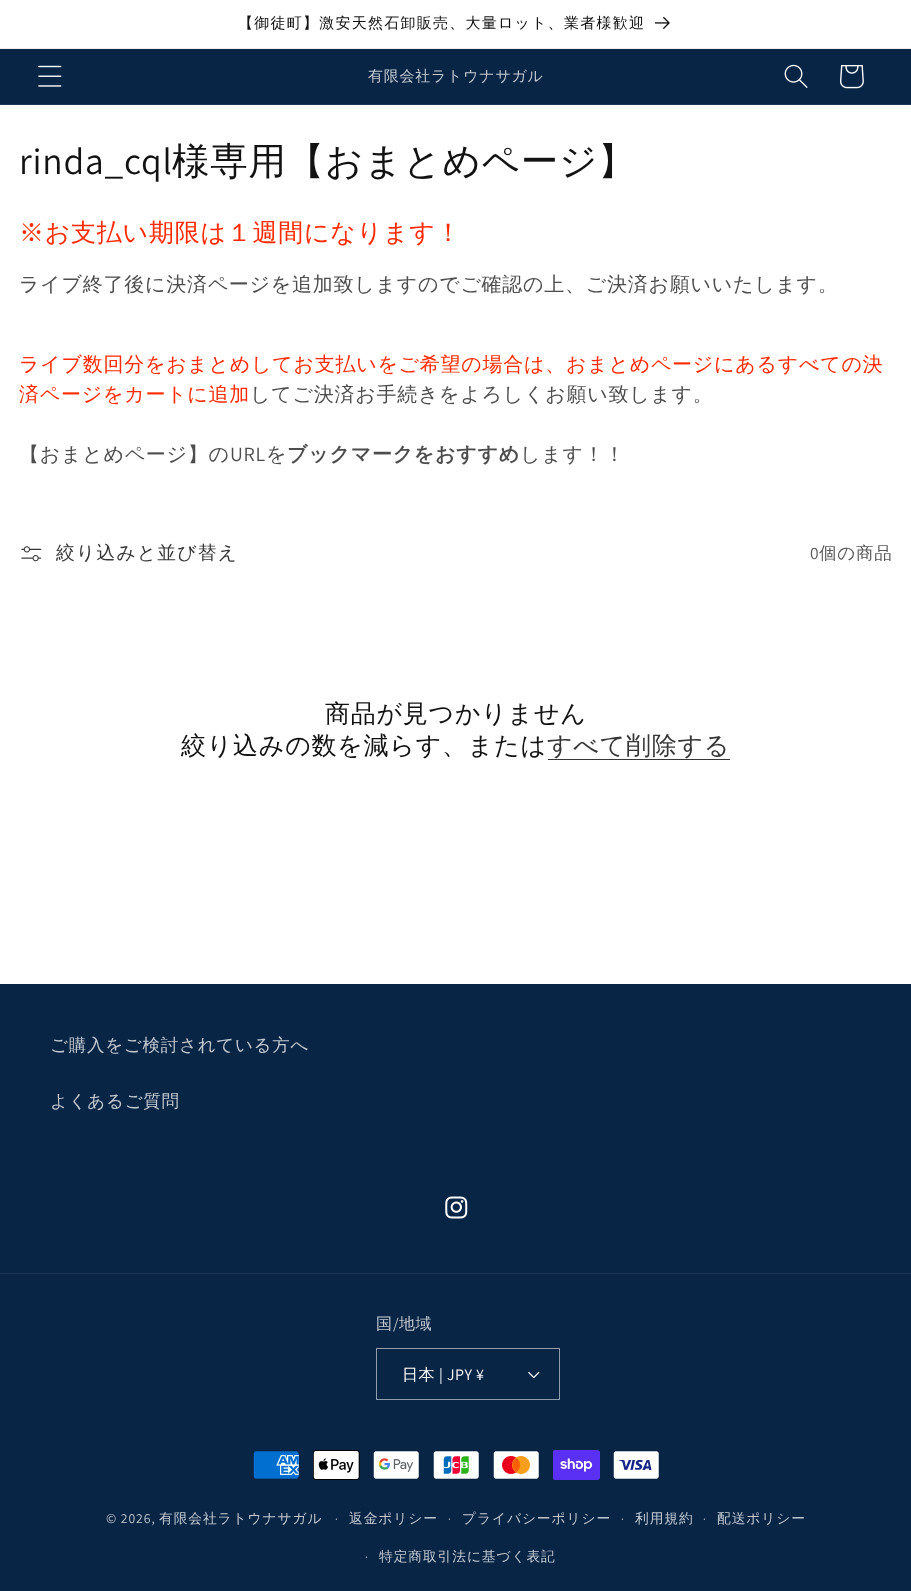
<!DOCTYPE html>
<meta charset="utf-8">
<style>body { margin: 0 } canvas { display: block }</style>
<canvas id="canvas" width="911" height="1591"></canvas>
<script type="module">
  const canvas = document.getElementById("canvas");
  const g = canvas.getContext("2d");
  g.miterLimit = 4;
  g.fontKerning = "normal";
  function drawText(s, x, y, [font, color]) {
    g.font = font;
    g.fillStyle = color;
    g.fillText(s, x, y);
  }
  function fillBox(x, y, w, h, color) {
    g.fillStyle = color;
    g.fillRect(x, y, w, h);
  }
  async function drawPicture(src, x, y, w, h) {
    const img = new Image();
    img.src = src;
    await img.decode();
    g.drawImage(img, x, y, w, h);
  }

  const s1 = ["500 15px WenQuanYi Zen Hei", "#121212"];
  const s2 = ["500 15px WenQuanYi Zen Hei", "#C2C9D1"];
  const s3 = ["37.5px Assistant", "#121212"];
  const s4 = ["500 37.5px WenQuanYi Zen Hei", "#121212"];
  const s5 = ["500 25px WenQuanYi Zen Hei", "#FF2A00"];
  const s6 = ["500 20px WenQuanYi Zen Hei", "#4D4D4D"];
  const s7 = ["500 20px WenQuanYi Zen Hei", "#FF2A00"];
  const s8 = ["20px Assistant", "#4D4D4D"];
  const s9 = ["bold 20px WenQuanYi Zen Hei", "#4D4D4D"];
  const s10 = ["500 18.75px WenQuanYi Zen Hei", "#363636"];
  const s11 = ["17.5px Assistant", "#595959"];
  const s12 = ["500 17.5px WenQuanYi Zen Hei", "#595959"];
  const s13 = ["500 25px WenQuanYi Zen Hei", "#121212"];
  const s14 = ["500 25px WenQuanYi Zen Hei", "#363636"];
  const s15 = ["500 17.5px WenQuanYi Zen Hei", "#C2C9D1"];
  const s16 = ["500 16px WenQuanYi Zen Hei", "#C2C9D1"];
  const s17 = ["16px Assistant", "#C2C9D1"];
  const s18 = ["500 16px WenQuanYi Zen Hei", "#FFFFFF"];
  const s19 = ["16px Assistant", "#FFFFFF"];
  const s20 = ["13.75px Assistant", "#C2C9D1"];
  const s21 = ["500 13.75px WenQuanYi Zen Hei", "#C2C9D1"];
  const s22 = ["12px Assistant", "#C2C9D1"];

  fillBox(0, 0, 911, 1591, "#FFFFFF");
  fillBox(0, 48, 911, 1, "#ECECEC");
  g.letterSpacing = "1.25px";
  drawText("【御徒町】激安天然石卸販売、大量ロット、業者様歓迎", 238, 28, s1);
  await drawPicture("pic1.png", 655, 16, 15, 13);
  fillBox(0, 49, 911, 55, "#092546");
  fillBox(0, 104, 911, 1, "#1D3655");
  await drawPicture("pic2.png", 38, 65, 24, 22);
  g.letterSpacing = "0.75px";
  drawText("有限会社ラトウナサガル", 368, 81, s2);
  await drawPicture("pic3.png", 784, 64, 24, 24);
  await drawPicture("pic4.png", 840, 65, 24, 24);
  drawText("rinda_cql", 19, 174, s3);
  drawText("様専用【おまとめページ】", 172, 174, s4);
  drawText("※お支払い期限は１週間になります！", 19, 241, s5);
  drawText("ライブ終了後に決済ページを追加致しますのでご確認の上、ご決済お願いいたします。", 19, 291, s6);
  drawText("ライブ数回分をおまとめしてお支払いをご希望の場合は、おまとめページにあるすべての決", 19, 371, s7);
  drawText("済ページをカートに追加", 19, 401, s7);
  drawText("してご決済お手続きをよろしくお願い致します。", 250, 401, s6);
  drawText("【おまとめページ】の", 19, 461, s6);
  drawText("URL", 230, 461, s8);
  drawText("を", 266, 461, s6);
  drawText("ブックマークをおすすめ", 287, 461, s9);
  drawText("します！！", 520, 461, s6);
  await drawPicture("pic5.png", 21, 546, 21, 16);
  g.letterSpacing = "1.25px";
  drawText("絞り込みと並び替え", 56, 559, s10);
  g.letterSpacing = "0.75px";
  drawText("0", 810, 559, s11);
  drawText("個の商品", 819, 559, s12);
  drawText("商品が見つかりません", 325, 722, s13);
  drawText("絞り込みの数を減らす、または", 181, 754, s13);
  drawText("すべて削除する", 547, 754, s14);
  fillBox(548, 759, 182, 1, "#363636");
  fillBox(0, 984, 911, 607, "#092546");
  drawText("ご購入をご検討されている方へ", 50, 1051, s15);
  drawText("よくあるご質問", 50, 1107, s15);
  await drawPicture("pic6.png", 445, 1196, 23, 23);
  fillBox(0, 1273, 911, 1, "#1D3655");
  g.letterSpacing = "0.5px";
  drawText("国", 376, 1329, s16);
  drawText("/", 393, 1329, s17);
  drawText("地域", 399, 1329, s16);
  await drawPicture("pic7.png", 528, 1371, 12, 8);
  g.strokeStyle = "#909DAC";
  g.strokeRect(376.5, 1348.5, 183, 51);
  drawText("日本", 402, 1380, s18);
  drawText("| JPY ¥", 439, 1380, s19);
  await drawPicture("pic8.png", 253, 1450, 47, 30);
  await drawPicture("pic9.png", 313, 1450, 47, 30);
  await drawPicture("pic10.png", 373, 1450, 47, 30);
  await drawPicture("pic11.png", 433, 1450, 47, 30);
  await drawPicture("pic12.png", 493, 1450, 47, 30);
  await drawPicture("pic13.png", 553, 1450, 47, 30);
  await drawPicture("pic14.png", 613, 1450, 47, 30);
  g.letterSpacing = "0.9px";
  drawText("© 2026,", 106, 1523, s20);
  drawText("有限会社ラトウナサガル", 159, 1523, s21);
  drawText("·", 335, 1523, s22);
  drawText("返金ポリシー", 349, 1523, s21);
  drawText("·", 448, 1523, s22);
  drawText("プライバシーポリシー", 462, 1523, s21);
  drawText("·", 621, 1523, s22);
  drawText("利用規約", 635, 1523, s21);
  drawText("·", 703, 1523, s22);
  drawText("配送ポリシー", 717, 1523, s21);
  drawText("·", 365, 1561, s22);
  drawText("特定商取引法に基づく表記", 379, 1561, s21);
</script>
